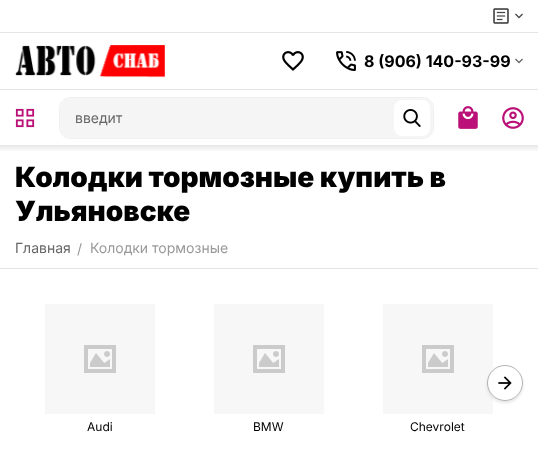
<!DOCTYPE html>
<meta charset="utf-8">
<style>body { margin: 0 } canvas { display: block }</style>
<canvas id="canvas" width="546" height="459"></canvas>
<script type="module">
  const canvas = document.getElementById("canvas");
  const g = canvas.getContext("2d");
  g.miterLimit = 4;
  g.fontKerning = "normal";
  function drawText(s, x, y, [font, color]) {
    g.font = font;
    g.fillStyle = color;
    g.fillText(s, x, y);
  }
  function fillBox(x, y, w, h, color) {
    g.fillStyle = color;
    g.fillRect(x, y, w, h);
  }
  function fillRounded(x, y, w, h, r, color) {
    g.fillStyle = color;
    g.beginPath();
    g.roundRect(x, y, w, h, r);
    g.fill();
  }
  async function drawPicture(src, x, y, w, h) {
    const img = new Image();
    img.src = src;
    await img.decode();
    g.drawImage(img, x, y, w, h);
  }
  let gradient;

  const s1 = ["bold 16px Inter", "#000000"];
  const s2 = ["14px Inter", "#666666"];
  const s3 = ["900 28px Inter", "#000000"];
  const s4 = ["14px Inter", "#999999"];
  const s5 = ["12px Inter", "#000000"];

  fillBox(0, 0, 546, 459, "#FFFFFF");
  fillBox(0, 32, 538, 1, "#E4E4E4");
  await drawPicture("pic1.png", 493, 8, 16, 16);
  await drawPicture("pic2.png", 515, 13, 8, 6);
  await drawPicture("pic3.png", 15, 45, 150, 33);
  await drawPicture("pic4.png", 282, 51, 22, 20);
  await drawPicture("pic5.png", 336, 51, 20, 20);
  drawText("8 (906) 140-93-99", 364, 67, s1);
  await drawPicture("pic6.png", 515, 58, 8, 6);
  fillBox(0, 89, 538, 1, "#E4E4E4");
  await drawPicture("pic7.png", 15, 108, 20, 20);
  g.beginPath();
  g.roundRect(59.5, 97.5, 374, 41, 10.5);
  g.strokeStyle = "#F0F0F0";
  g.stroke();
  fillRounded(60, 98, 373, 40, 10, "#F5F5F5");
  drawText("введит", 75, 123, s2);
  fillRounded(394, 100, 36, 36, 8, "#FFFFFF");
  await drawPicture("pic8.png", 403, 109, 18, 18);
  await drawPicture("pic9.png", 458, 106, 20, 23);
  await drawPicture("pic10.png", 502, 107, 22, 22);
  gradient = g.createLinearGradient(269, 145, 269, 152);
  gradient.addColorStop(0, "#E6E6E6");
  gradient.addColorStop(1, "#FFFFFF");
  g.fillStyle = gradient;
  g.fillRect(0, 145, 538, 6);
  drawText("Колодки тормозные купить в", 15, 187, s3);
  drawText("Ульяновске", 15, 221, s3);
  fillBox(0, 268, 538, 1, "#E4E4E4");
  drawText("Главная", 15, 253, s2);
  drawText("/", 77, 254, s4);
  drawText("Колодки тормозные", 90, 253, s4);
  fillBox(383, 304, 110, 110, "#F7F7F7");
  g.save();
  g.beginPath();
  g.moveTo(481, 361);
  g.lineTo(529, 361);
  g.lineTo(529, 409);
  g.lineTo(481, 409);
  g.closePath();
  g.moveTo(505, 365);
  g.bezierCurveTo(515, 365, 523, 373, 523, 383);
  g.bezierCurveTo(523, 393, 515, 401, 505, 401);
  g.bezierCurveTo(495, 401, 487, 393, 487, 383);
  g.bezierCurveTo(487, 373, 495, 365, 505, 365);
  g.closePath();
  g.clip("evenodd");
  g.fillStyle = "rgba(0, 0, 0, 0.1)";
  g.filter = "blur(1.5px)";
  g.beginPath();
  g.roundRect(487, 367, 36, 36, 18);
  g.fill();
  g.filter = "none";
  g.restore();
  g.fillStyle = "rgba(255, 255, 255, 0.8)";
  g.beginPath();
  g.arc(505, 383, 18, 0, Math.PI * 2);
  g.fill();
  g.beginPath();
  g.arc(505, 383, 17.5, 0, Math.PI * 2);
  g.strokeStyle = "rgba(0, 0, 0, 0.3)";
  g.stroke();
  await drawPicture("pic11.png", 498, 376, 14, 14);
  fillBox(45, 304, 110, 110, "#F7F7F7");
  await drawPicture("pic12.png", 84, 345, 32, 28);
  drawText("Audi", 87, 431, s5);
  fillBox(214, 304, 110, 110, "#F7F7F7");
  await drawPicture("pic12.png", 253, 345, 32, 28);
  drawText("BMW", 253, 431, s5);
  await drawPicture("pic12.png", 422, 345, 32, 28);
  drawText("Chevrolet", 410, 431, s5);
</script>
